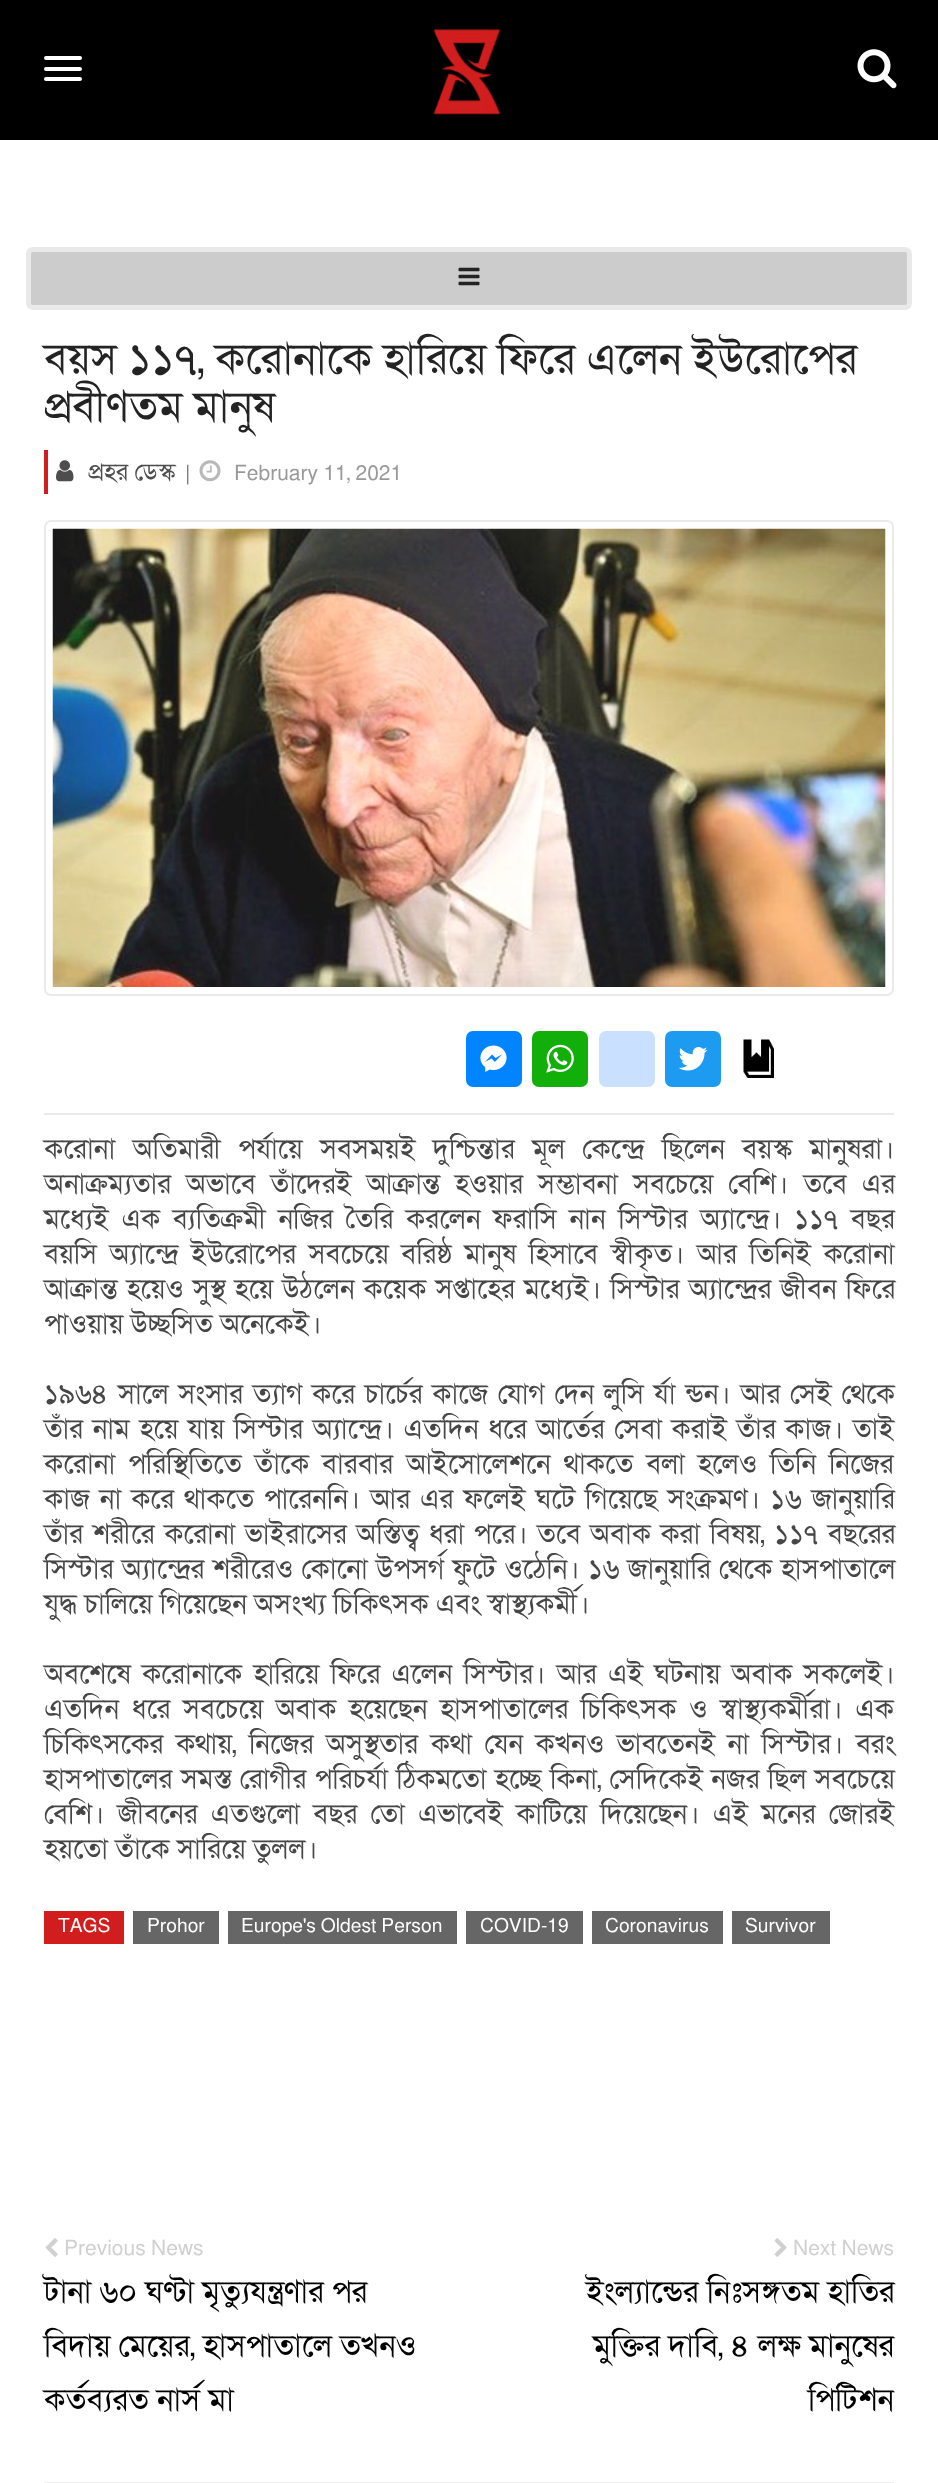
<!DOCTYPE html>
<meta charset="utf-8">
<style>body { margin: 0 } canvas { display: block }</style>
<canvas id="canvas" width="938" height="2483"></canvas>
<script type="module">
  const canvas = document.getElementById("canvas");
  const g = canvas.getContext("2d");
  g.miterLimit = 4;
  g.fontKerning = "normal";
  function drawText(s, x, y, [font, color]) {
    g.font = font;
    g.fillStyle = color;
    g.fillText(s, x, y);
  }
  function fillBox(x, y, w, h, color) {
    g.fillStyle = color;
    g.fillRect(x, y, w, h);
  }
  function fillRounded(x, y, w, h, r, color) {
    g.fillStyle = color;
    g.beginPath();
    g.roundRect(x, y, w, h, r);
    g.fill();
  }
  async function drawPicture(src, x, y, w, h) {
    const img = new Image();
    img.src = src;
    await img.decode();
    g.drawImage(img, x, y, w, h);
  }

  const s1 = ["43.75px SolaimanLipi", "#232323"];
  const s2 = ["24.5px SolaimanLipi", "#4D4D4D"];
  const s3 = ["21px SolaimanLipi", "#737373"];
  const s4 = ["21px SolaimanLipi", "#999999"];
  const s5 = ["28px SolaimanLipi", "#464646"];
  const s6 = ["19.25px SolaimanLipi", "#FFFFFF"];
  const s7 = ["21px SolaimanLipi", "#D0D0D0"];
  const s8 = ["31.5px SolaimanLipi", "#000000"];

  fillBox(0, 0, 938, 2483, "#FFFFFF");
  fillBox(0, 0, 938, 140, "#000000");
  fillRounded(44, 56, 38, 4, 2, "#FFFFFF");
  fillRounded(44, 67, 38, 4, 2, "#FFFFFF");
  fillRounded(44, 77, 38, 4, 2, "#FFFFFF");
  await drawPicture("pic1.png", 433, 29, 68, 86);
  await drawPicture("pic2.png", 857, 49, 40, 40);
  g.fillStyle = "#CCCCCC";
  g.beginPath();
  g.roundRect(28.5, 249.5, 881, 58, 4.5);
  g.fill();
  g.strokeStyle = "#E9E9E9";
  g.lineWidth = 5;
  g.stroke();
  await drawPicture("pic3.png", 458, 267, 22, 19);
  drawText("বয়স ১১৭, করোনাকে হারিয়ে ফিরে এলেন ইউরোপের", 44, 373, s1);
  drawText("প্রবীণতম মানুষ", 44, 421, s1);
  fillBox(44, 450, 4, 44, "#D11D1D");
  await drawPicture("pic4.png", 56, 460, 18, 22);
  drawText("প্রহর ডেস্ক", 88, 480, s2);
  drawText("|", 185, 480, s3);
  await drawPicture("pic5.png", 199, 460, 22, 22);
  drawText("February 11, 2021", 234, 480, s4);
  g.beginPath();
  g.roundRect(45, 521, 848, 474, 6);
  g.strokeStyle = "#EAEAEA";
  g.lineWidth = 2;
  g.stroke();
  await drawPicture("pic6.png", 52, 528, 834, 459);
  fillBox(44, 1113, 850, 2, "#EAEAEA");
  fillRounded(466, 1031, 56, 56, 7, "#0084FF");
  await drawPicture("pic7.png", 480, 1045, 27, 27);
  fillRounded(532, 1031, 56, 56, 7, "#12AF0A");
  await drawPicture("pic8.png", 546, 1044, 28, 29);
  fillRounded(599, 1031, 56, 56, 7, "#CAE0FF");
  fillRounded(665, 1031, 56, 56, 7, "#1D9BF0");
  await drawPicture("pic9.png", 678, 1047, 30, 24);
  await drawPicture("pic10.png", 743, 1039, 31, 39);
  g.wordSpacing = "10.25px";
  drawText("করোনা অতিমারী পর্যায়ে সবসময়ই দুশ্চিন্তার মূল কেন্দ্রে ছিলেন বয়স্ক মানুষরা।", 44, 1158, s5);
  g.wordSpacing = "7.75px";
  drawText("অনাক্রম্যতার অভাবে তাঁদেরই আক্রান্ত হওয়ার সম্ভাবনা সবচেয়ে বেশি। তবে এর", 44, 1193, s5);
  g.wordSpacing = "5.4px";
  drawText("মধ্যেই এক ব্যতিক্রমী নজির তৈরি করলেন ফরাসি নান সিস্টার অ্যান্দ্রে। ১১৭ বছর", 44, 1228, s5);
  g.wordSpacing = "5.25px";
  drawText("বয়সি অ্যান্দ্রে ইউরোপের সবচেয়ে বরিষ্ঠ মানুষ হিসাবে স্বীকৃত। আর তিনিই করোনা", 44, 1263, s5);
  g.wordSpacing = "1.75px";
  drawText("আক্রান্ত হয়েও সুস্থ হয়ে উঠলেন কয়েক সপ্তাহের মধ্যেই। সিস্টার অ্যান্দ্রের জীবন ফিরে", 44, 1298, s5);
  g.wordSpacing = "0px";
  drawText("পাওয়ায় উচ্ছসিত অনেকেই।", 44, 1333, s5);
  g.wordSpacing = "2.4px";
  drawText("১৯৬৪ সালে সংসার ত্যাগ করে চার্চের কাজে যোগ দেন লুসি র্যা ন্ডন। আর সেই থেকে", 44, 1403, s5);
  g.wordSpacing = "2.25px";
  drawText("তাঁর নাম হয়ে যায় সিস্টার অ্যান্দ্রে। এতদিন ধরে আর্তের সেবা করাই তাঁর কাজ। তাই", 44, 1438, s5);
  g.wordSpacing = "5.75px";
  drawText("করোনা পরিস্থিতিতে তাঁকে বারবার আইসোলেশনে থাকতে বলা হলেও তিনি নিজের", 44, 1473, s5);
  g.wordSpacing = "2.75px";
  drawText("কাজ না করে থাকতে পারেননি। আর এর ফলেই ঘটে গিয়েছে সংক্রমণ। ১৬ জানুয়ারি", 44, 1508, s5);
  g.wordSpacing = "2.25px";
  drawText("তাঁর শরীরে করোনা ভাইরাসের অস্তিত্ব ধরা পরে। তবে অবাক করা বিষয়, ১১৭ বছরের", 44, 1543, s5);
  g.wordSpacing = "1px";
  drawText("সিস্টার অ্যান্দ্রের শরীরেও কোনো উপসর্গ ফুটে ওঠেনি। ১৬ জানুয়ারি থেকে হাসপাতালে", 44, 1578, s5);
  g.wordSpacing = "0px";
  drawText("যুদ্ধ চালিয়ে গিয়েছেন অসংখ্য চিকিৎসক এবং স্বাস্থ্যকর্মী।", 44, 1613, s5);
  g.wordSpacing = "4px";
  drawText("অবশেষে করোনাকে হারিয়ে ফিরে এলেন সিস্টার। আর এই ঘটনায় অবাক সকলেই।", 44, 1683, s5);
  g.wordSpacing = "5.25px";
  drawText("এতদিন ধরে সবচেয়ে অবাক হয়েছেন হাসপাতালের চিকিৎসক ও স্বাস্থ্যকর্মীরা। এক", 44, 1718, s5);
  drawText("চিকিৎসকের কথায়, নিজের অসুস্থতার কথা যেন কখনও ভাবতেনই না সিস্টার। বরং", 44, 1753, s5);
  g.wordSpacing = "1px";
  drawText("হাসপাতালের সমস্ত রোগীর পরিচর্যা ঠিকমতো হচ্ছে কিনা, সেদিকেই নজর ছিল সবচেয়ে", 44, 1788, s5);
  g.wordSpacing = "6px";
  drawText("বেশি। জীবনের এতগুলো বছর তো এভাবেই কাটিয়ে দিয়েছেন। এই মনের জোরই", 44, 1823, s5);
  g.wordSpacing = "0px";
  drawText("হয়তো তাঁকে সারিয়ে তুলল।", 44, 1858, s5);
  fillBox(44, 1911, 80, 33, "#D11D1D");
  drawText("TAGS", 58, 1932, s6);
  fillBox(133, 1911, 86, 33, "#666666");
  drawText("Prohor", 147, 1932, s6);
  fillBox(228, 1911, 229, 33, "#666666");
  drawText("Europe's Oldest Person", 241, 1932, s6);
  fillBox(466, 1911, 117, 33, "#666666");
  drawText("COVID-19", 480, 1932, s6);
  fillBox(592, 1911, 131, 33, "#666666");
  drawText("Coronavirus", 605, 1932, s6);
  fillBox(732, 1911, 98, 33, "#666666");
  drawText("Survivor", 745, 1932, s6);
  await drawPicture("pic11.png", 45, 2238, 13, 19);
  drawText("Previous News", 64, 2255, s7);
  drawText("টানা ৬০ ঘণ্টা মৃত্যুযন্ত্রণার পর", 44, 2302, s8);
  drawText("বিদায় মেয়ের, হাসপাতালে তখনও", 44, 2356, s8);
  drawText("কর্তব্যরত নার্স মা", 44, 2410, s8);
  await drawPicture("pic12.png", 774, 2238, 13, 19);
  drawText("Next News", 793, 2255, s7);
  drawText("ইংল্যান্ডের নিঃসঙ্গতম হাতির", 586, 2302, s8);
  drawText("মুক্তির দাবি, ৪ লক্ষ মানুষের", 593, 2356, s8);
  drawText("পিটিশন", 808, 2410, s8);
  g.strokeStyle = "#EDEDED";
  g.strokeRect(45, 2483, 848, 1);
</script>
